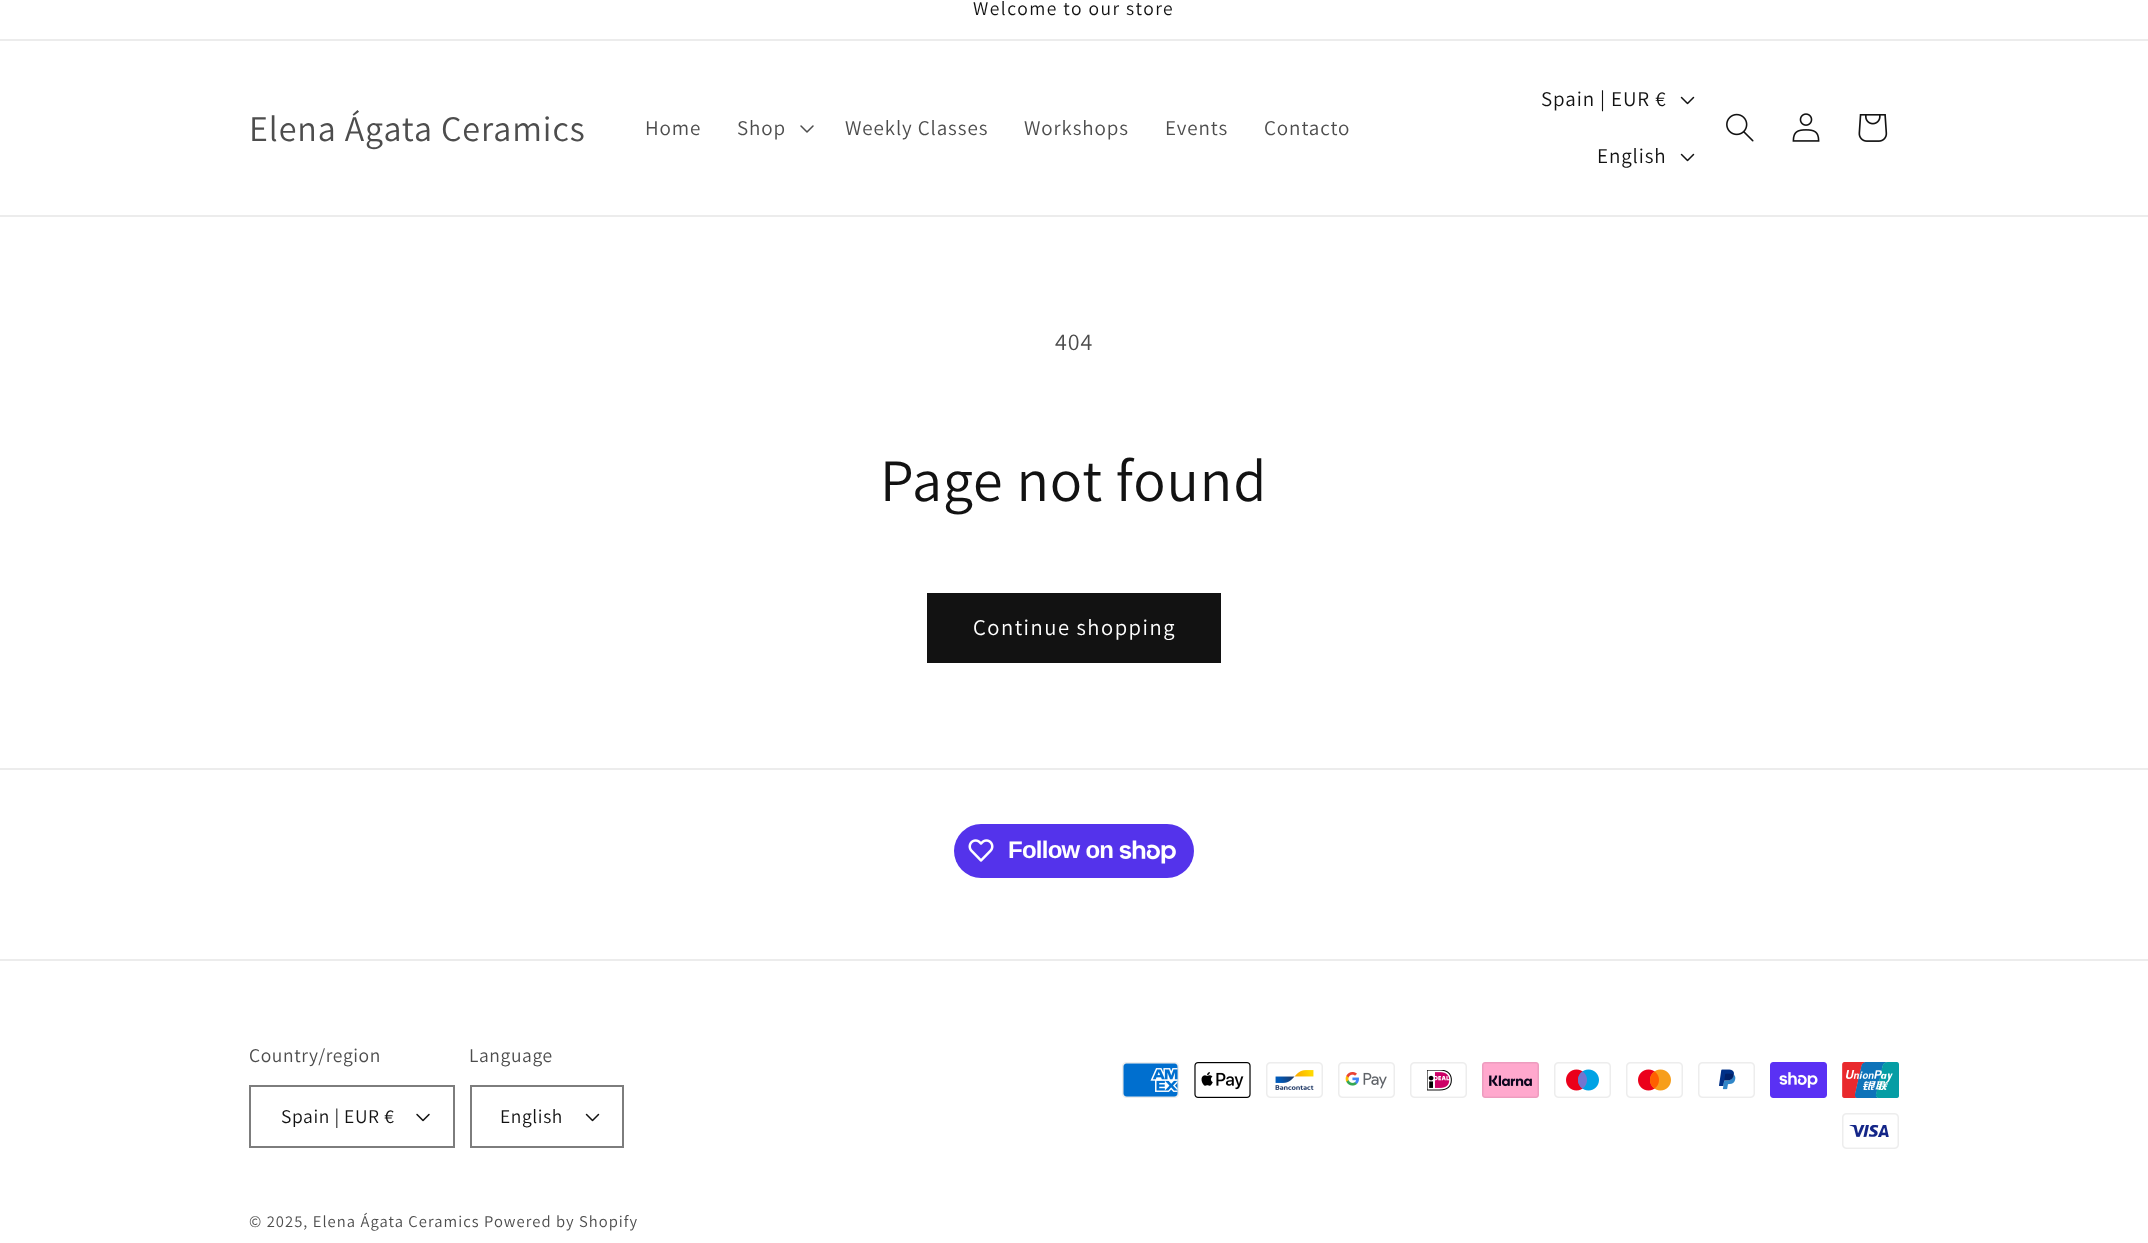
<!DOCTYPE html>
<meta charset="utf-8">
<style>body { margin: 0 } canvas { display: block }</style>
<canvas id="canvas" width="2148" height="1243"></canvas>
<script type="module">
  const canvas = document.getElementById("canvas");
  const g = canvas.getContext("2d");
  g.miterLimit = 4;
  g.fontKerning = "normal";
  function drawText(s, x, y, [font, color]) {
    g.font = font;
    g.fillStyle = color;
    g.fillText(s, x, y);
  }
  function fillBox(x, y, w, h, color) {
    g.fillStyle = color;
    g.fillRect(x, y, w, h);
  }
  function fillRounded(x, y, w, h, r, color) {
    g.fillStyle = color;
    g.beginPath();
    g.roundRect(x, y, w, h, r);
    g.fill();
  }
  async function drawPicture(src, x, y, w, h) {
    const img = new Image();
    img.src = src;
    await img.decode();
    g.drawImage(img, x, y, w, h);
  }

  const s1 = ["19.5px Assistant", "#121212"];
  const s2 = ["36px Assistant", "#4D4D4D"];
  const s3 = ["21px Assistant", "#4D4D4D"];
  const s4 = ["21px Assistant", "#121212"];
  const s5 = ["24px Assistant", "#4D4D4D"];
  const s6 = ["60px Assistant", "#121212"];
  const s7 = ["22.5px Assistant", "#FFFFFF"];
  const s8 = ["bold 24px Liberation Sans", "#FFFFFF"];
  const s9 = ["19.5px Assistant", "#4D4D4D"];
  const s10 = ["16.5px Assistant", "#4D4D4D"];

  fillBox(0, 0, 2148, 1243, "#FFFFFF");
  fillBox(0, 39, 2148, 2, "#ECECEC");
  g.letterSpacing = "1.5px";
  drawText("Welcome to our store", 973, 15, s1);
  fillBox(0, 215, 2148, 2, "#ECECEC");
  g.letterSpacing = "0.9px";
  drawText("Elena Ágata Ceramics", 249, 141, s2);
  drawText("Home", 645, 135, s3);
  drawText("Shop", 737, 135, s3);
  await drawPicture("pic1.png", 800, 125, 14, 8);
  drawText("Weekly Classes", 845, 135, s3);
  drawText("Workshops", 1024, 135, s3);
  drawText("Events", 1165, 135, s3);
  drawText("Contacto", 1264, 135, s3);
  drawText("Spain | EUR €", 1541, 106, s4);
  await drawPicture("pic2.png", 1680, 96, 15, 9);
  drawText("English", 1597, 163, s4);
  await drawPicture("pic2.png", 1680, 153, 15, 9);
  await drawPicture("pic3.png", 1726, 113, 28, 29);
  await drawPicture("pic4.png", 1792, 113, 28, 29);
  await drawPicture("pic5.png", 1858, 114, 30, 28);
  drawText("404", 1055, 350, s5);
  drawText("Page not found", 880, 501, s6);
  fillBox(927, 593, 294, 70, "#121212");
  g.letterSpacing = "1.5px";
  drawText("Continue shopping", 973, 635, s7);
  fillBox(0, 768, 2148, 2, "#ECECEC");
  fillRounded(954, 824, 240, 54, 27, "#5433EB");
  await drawPicture("pic6.png", 968, 839, 26, 23);
  g.letterSpacing = "-0.75px";
  drawText("Follow on", 1008, 858, s8);
  await drawPicture("pic7.png", 1119, 840, 57, 24);
  fillBox(0, 959, 2148, 2, "#ECECEC");
  g.letterSpacing = "0.6px";
  drawText("Country/region", 249, 1062, s9);
  await drawPicture("pic8.png", 416, 1113, 14, 9);
  g.strokeStyle = "#7D7D7D";
  g.lineWidth = 2;
  g.strokeRect(250, 1086, 204, 61);
  drawText("Spain | EUR €", 281, 1123, s1);
  drawText("Language", 469, 1062, s9);
  await drawPicture("pic2.png", 585, 1113, 15, 9);
  g.strokeRect(471, 1086, 152, 61);
  drawText("English", 500, 1123, s1);
  await drawPicture("pic9.png", 1122, 1062, 57, 36);
  await drawPicture("pic10.png", 1194, 1062, 57, 36);
  await drawPicture("pic11.png", 1266, 1062, 57, 36);
  await drawPicture("pic12.png", 1338, 1062, 57, 36);
  await drawPicture("pic13.png", 1410, 1062, 57, 36);
  await drawPicture("pic14.png", 1482, 1062, 57, 36);
  await drawPicture("pic15.png", 1554, 1062, 57, 36);
  await drawPicture("pic16.png", 1626, 1062, 57, 36);
  await drawPicture("pic17.png", 1698, 1062, 57, 36);
  await drawPicture("pic18.png", 1770, 1062, 57, 36);
  await drawPicture("pic19.png", 1842, 1062, 57, 36);
  await drawPicture("pic20.png", 1842, 1113, 57, 36);
  g.letterSpacing = "1.05px";
  drawText("© 2025, Elena Ágata Ceramics", 249, 1227, s10);
  drawText("Powered by Shopify", 484, 1227, s10);
</script>
